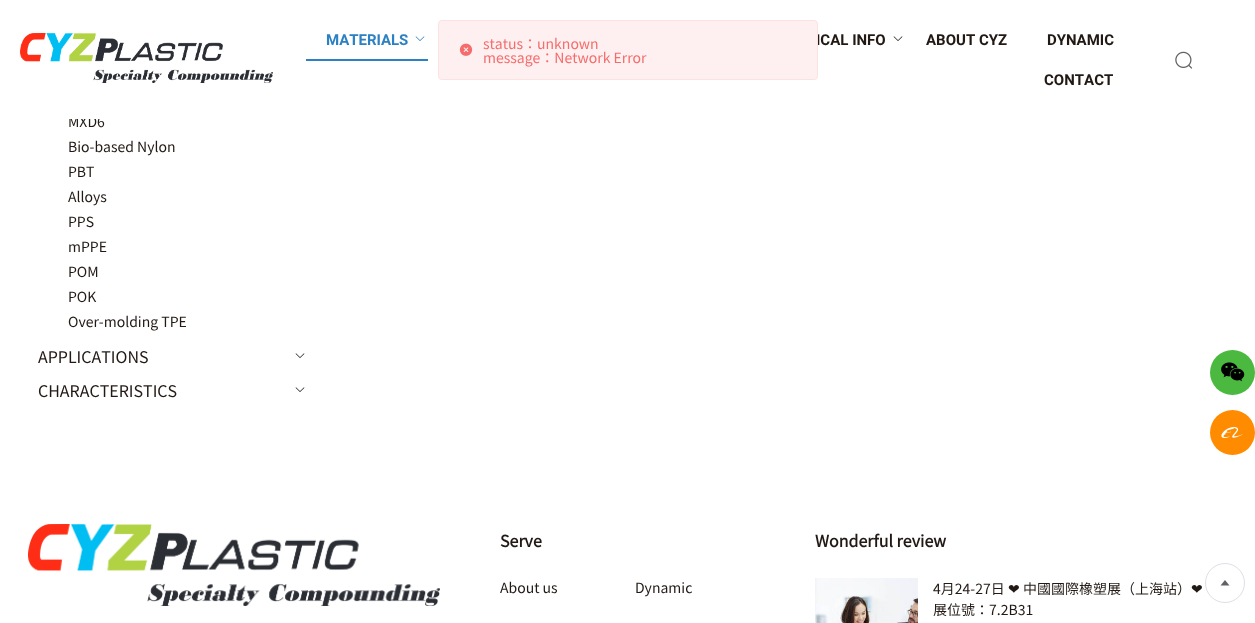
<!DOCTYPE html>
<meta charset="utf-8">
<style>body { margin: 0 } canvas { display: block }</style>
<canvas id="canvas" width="1255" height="623"></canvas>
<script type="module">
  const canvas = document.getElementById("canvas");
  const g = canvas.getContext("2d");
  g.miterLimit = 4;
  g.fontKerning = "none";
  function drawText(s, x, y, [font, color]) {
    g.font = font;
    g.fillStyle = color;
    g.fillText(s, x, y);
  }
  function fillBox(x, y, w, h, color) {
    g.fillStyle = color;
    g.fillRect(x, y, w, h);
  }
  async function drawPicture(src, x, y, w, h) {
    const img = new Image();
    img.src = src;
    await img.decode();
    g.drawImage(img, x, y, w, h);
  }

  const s1 = ["bold 15px Roboto", "#2D81C2"];
  const s2 = ["bold 15px Roboto", "#221915"];
  const s3 = ["14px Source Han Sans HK", "#221915"];
  const s4 = ["16px Source Han Sans HK", "#221915"];
  const s5 = ["bold 16px Source Han Sans HK", "#221915"];
  const s6 = ["14px DejaVu Sans", "#221915"];
  const s7 = ["14px Source Han Sans HK", "#F56C6C"];

  fillBox(0, 0, 1255, 623, "#FFFFFF");
  await drawPicture("pic1.png", 20, 33, 253, 50);
  fillBox(306, 59, 122, 2, "#2D81C2");
  drawText("MATERIALS", 326, 45, s1);
  await drawPicture("pic2.png", 415, 36, 10, 5);
  drawText("ICAL INFO", 816, 45, s2);
  await drawPicture("pic3.png", 893, 36, 10, 5);
  drawText("ABOUT CYZ", 926, 45, s2);
  drawText("DYNAMIC", 1047, 45, s2);
  drawText("CONTACT", 1044, 85, s2);
  await drawPicture("pic4.png", 1175, 51, 18, 18);
  drawText("MXD6", 68, 127, s3);
  fillBox(68, 116, 36, 3, "#FFFFFF");
  drawText("Bio-based Nylon", 68, 152, s3);
  drawText("PBT", 68, 177, s3);
  drawText("Alloys", 68, 202, s3);
  drawText("PPS", 68, 227, s3);
  drawText("mPPE", 68, 252, s3);
  drawText("POM", 68, 277, s3);
  drawText("POK", 68, 302, s3);
  drawText("Over-molding TPE", 68, 327, s3);
  drawText("APPLICATIONS", 38, 363, s4);
  await drawPicture("pic3.png", 295, 353, 10, 5);
  drawText("CHARACTERISTICS", 38, 397, s4);
  await drawPicture("pic3.png", 295, 387, 10, 5);
  await drawPicture("pic5.png", 28, 524, 412, 82);
  drawText("Serve", 500, 547, s5);
  drawText("About us", 500, 593, s3);
  drawText("Dynamic", 635, 593, s3);
  drawText("Wonderful review", 815, 547, s5);
  await drawPicture("pic6.png", 815, 578, 103, 45);
  drawText("4月24-27日", 933, 594, s3);
  drawText("❤", 1008, 594, s6);
  drawText("中國國際橡塑展（上海站）", 1023, 594, s3);
  drawText("❤", 1191, 594, s6);
  drawText("展位號：7.2B31", 933, 615, s3);
  g.fillStyle = "#4BB93F";
  g.beginPath();
  g.arc(1232.5, 372.5, 22.5, 0, Math.PI * 2);
  g.fill();
  await drawPicture("pic7.png", 1221, 362, 24, 20);
  g.fillStyle = "#FF8C00";
  g.beginPath();
  g.arc(1232.5, 432.5, 22.5, 0, Math.PI * 2);
  g.fill();
  await drawPicture("pic8.png", 1221, 427, 22, 11);
  g.beginPath();
  g.arc(1225, 583, 19.5, 0, Math.PI * 2);
  g.strokeStyle = "#DCDFE6";
  g.stroke();
  g.fillStyle = "#606266";
  g.beginPath();
  g.moveTo(1225, 580);
  g.lineTo(1220.5, 585.5);
  g.lineTo(1229.5, 585.5);
  g.closePath();
  g.fill();
  g.fillStyle = "#FEF0F0";
  g.beginPath();
  g.roundRect(438.5, 20.5, 379, 59, 3.5);
  g.fill();
  g.strokeStyle = "#FDE2E2";
  g.stroke();
  await drawPicture("pic9.png", 459, 43, 14, 13);
  drawText("status：unknown", 483, 49, s7);
  drawText("message：Network Error", 483, 63, s7);
</script>
